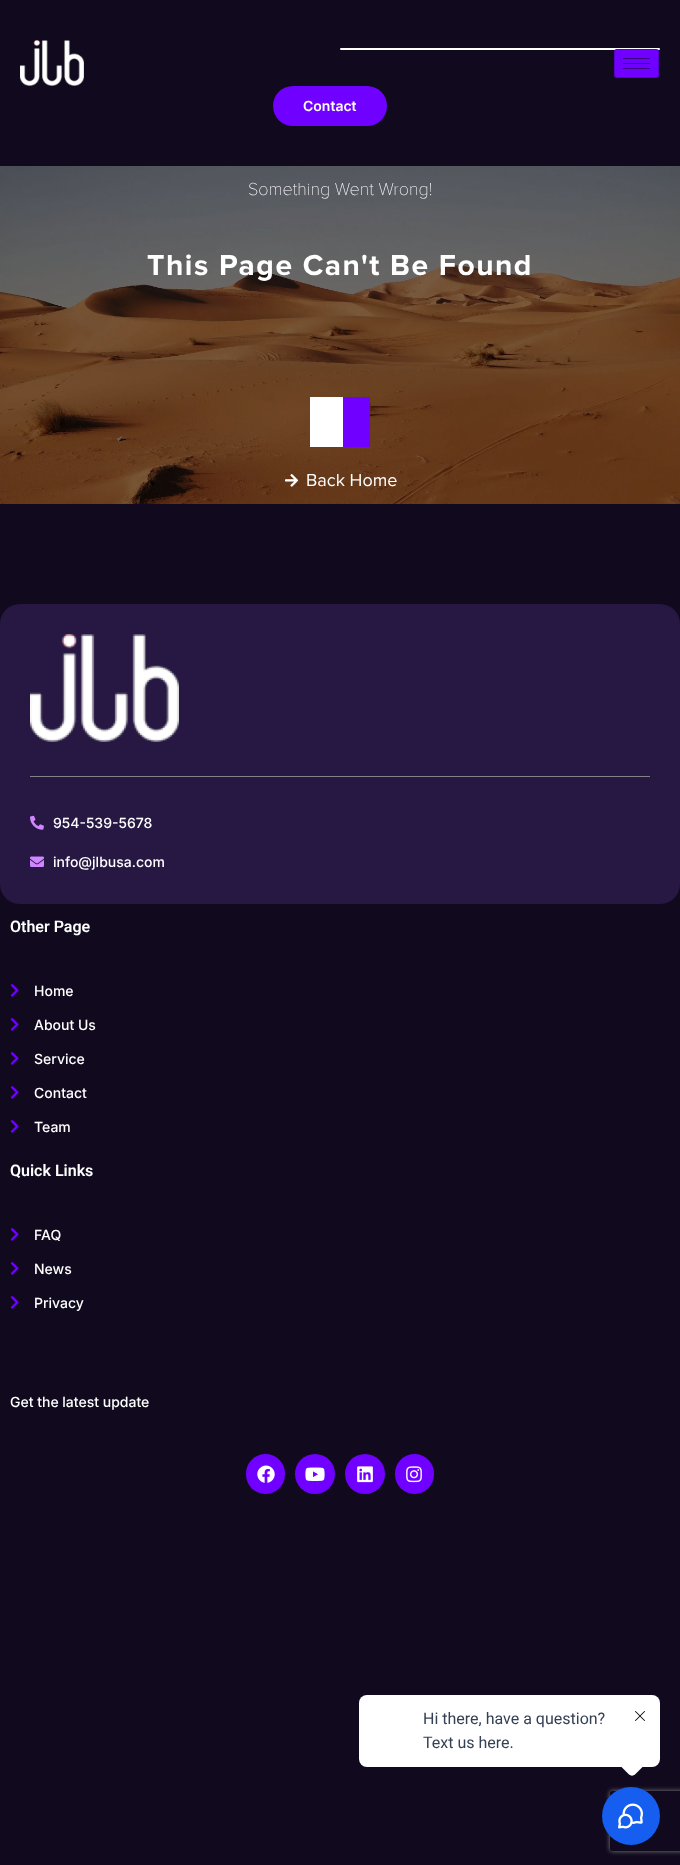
<!DOCTYPE html>
<meta charset="utf-8">
<style>body { margin: 0 } canvas { display: block }</style>
<canvas id="canvas" width="680" height="1865"></canvas>
<script type="module">
  const canvas = document.getElementById("canvas");
  const g = canvas.getContext("2d");
  g.miterLimit = 4;
  g.fontKerning = "normal";
  function drawText(s, x, y, [font, color]) {
    g.font = font;
    g.fillStyle = color;
    g.fillText(s, x, y);
  }
  function fillBox(x, y, w, h, color) {
    g.fillStyle = color;
    g.fillRect(x, y, w, h);
  }
  function fillRounded(x, y, w, h, r, color) {
    g.fillStyle = color;
    g.beginPath();
    g.roundRect(x, y, w, h, r);
    g.fill();
  }
  async function drawPicture(src, x, y, w, h) {
    const img = new Image();
    img.src = src;
    await img.decode();
    g.drawImage(img, x, y, w, h);
  }

  const s1 = ["600 14px Inter", "#FFFFFF"];
  const s2 = ["100 18px Proxima Nova", "#FFFFFF"];
  const s3 = ["bold 30px Proxima Nova", "#FFFFFF"];
  const s4 = ["18px Proxima Nova", "#FFFFFF"];
  const s5 = ["500 14px Inter", "#FFFFFF"];
  const s6 = ["600 16px Roboto", "#FFFFFF"];
  const s7 = ["16px Roboto", "#344054"];

  fillBox(0, 0, 680, 1865, "#110A1F");
  await drawPicture("pic1.png", 20, 40, 64, 46);
  fillRounded(340, 48, 320, 2, 1, "#FFFFFF");
  fillRounded(614, 49, 45, 29, 3, "#7000FF");
  g.beginPath();
  g.roundRect(614.5, 49.5, 44, 28, 2.5);
  g.strokeStyle = "rgba(0, 0, 0, 0.2)";
  g.stroke();
  fillBox(623, 58, 27, 1, "#380080");
  fillBox(623, 63, 27, 1, "#380080");
  fillBox(623, 68, 27, 1, "#380080");
  fillRounded(273, 86, 114, 40, 20, "#7000FF");
  drawText("Contact", 303, 111, s1);
  await drawPicture("pic2.png", 0, 166, 680, 338);
  drawText("Something Went Wrong!", 248, 195, s2);
  g.letterSpacing = "1.5px";
  drawText("This Page Can't Be Found", 147, 275, s3);
  fillBox(310, 397, 33, 50, "#FFFFFF");
  fillBox(343, 397, 27, 50, "#7000FF");
  await drawPicture("pic3.png", 285, 474, 14, 13);
  g.letterSpacing = "0px";
  drawText("Back Home", 306, 486, s4);
  fillRounded(0, 604, 680, 300, 20, "#261743");
  await drawPicture("pic4.png", 30, 634, 149, 108);
  fillBox(30, 776, 620, 1, "#818287");
  await drawPicture("pic5.png", 30, 815, 14, 15);
  drawText("954-539-5678", 53, 828, s5);
  await drawPicture("pic6.png", 30, 856, 14, 11);
  drawText("info@jlbusa.com", 53, 867, s5);
  drawText("Other Page", 10, 932, s6);
  await drawPicture("pic7.png", 10, 984, 9, 13);
  drawText("Home", 34, 996, s5);
  await drawPicture("pic7.png", 10, 1018, 9, 13);
  drawText("About Us", 34, 1030, s5);
  await drawPicture("pic7.png", 10, 1052, 9, 13);
  drawText("Service", 34, 1064, s5);
  await drawPicture("pic7.png", 10, 1086, 9, 13);
  drawText("Contact", 34, 1098, s5);
  await drawPicture("pic7.png", 10, 1120, 9, 13);
  drawText("Team", 34, 1132, s5);
  drawText("Quick Links", 10, 1176, s6);
  await drawPicture("pic7.png", 10, 1228, 9, 13);
  drawText("FAQ", 34, 1240, s5);
  await drawPicture("pic7.png", 10, 1262, 9, 13);
  drawText("News", 34, 1274, s5);
  await drawPicture("pic7.png", 10, 1296, 9, 13);
  drawText("Privacy", 34, 1308, s5);
  drawText("Get the latest update", 10, 1407, s5);
  fillRounded(246, 1454, 39, 40, 19.5, "#7000FF");
  await drawPicture("pic8.png", 257, 1465, 18, 18);
  g.beginPath();
  g.arc(315, 1474, 20, 0, Math.PI * 2);
  g.fill();
  await drawPicture("pic9.png", 305, 1467, 20, 14);
  g.beginPath();
  g.arc(365, 1474, 20, 0, Math.PI * 2);
  g.fill();
  await drawPicture("pic10.png", 357, 1466, 16, 17);
  fillRounded(395, 1454, 39, 40, 19.5, "#7000FF");
  await drawPicture("pic11.png", 406, 1466, 16, 17);
  fillRounded(359, 1695, 301, 72, 8, "#FFFFFF");
  drawText("Hi there, have a question?", 423, 1724, s7);
  drawText("Text us here.", 423, 1748, s7);
  g.fillStyle = "#FFFFFF";
  g.beginPath();
  g.moveTo(635, 1751.5);
  g.lineTo(643.5, 1760);
  g.bezierCurveTo(645, 1761.5, 645, 1764.5, 643.5, 1766);
  g.lineTo(635, 1774.5);
  g.bezierCurveTo(633.5, 1776, 630.5, 1776, 629, 1774.5);
  g.lineTo(620.5, 1766);
  g.bezierCurveTo(619, 1764.5, 619, 1761.5, 620.5, 1760);
  g.lineTo(629, 1751.5);
  g.bezierCurveTo(630.5, 1750, 633.5, 1750, 635, 1751.5);
  g.closePath();
  g.fill();
  await drawPicture("pic12.png", 635, 1711, 10, 10);
  g.save();
  g.beginPath();
  g.moveTo(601, 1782);
  g.lineTo(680, 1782);
  g.lineTo(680, 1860);
  g.lineTo(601, 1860);
  g.closePath();
  g.moveTo(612, 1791);
  g.lineTo(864, 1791);
  g.bezierCurveTo(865, 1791, 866, 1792, 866, 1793);
  g.lineTo(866, 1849);
  g.bezierCurveTo(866, 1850, 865, 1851, 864, 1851);
  g.lineTo(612, 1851);
  g.bezierCurveTo(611, 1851, 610, 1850, 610, 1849);
  g.lineTo(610, 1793);
  g.bezierCurveTo(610, 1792, 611, 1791, 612, 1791);
  g.closePath();
  g.clip("evenodd");
  g.fillStyle = "#808080";
  g.filter = "blur(2.5px)";
  g.beginPath();
  g.roundRect(610, 1791, 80, 60, 2);
  g.fill();
  g.filter = "none";
  g.restore();
  g.fillStyle = "#155EEF";
  g.beginPath();
  g.arc(631, 1816, 29, 0, Math.PI * 2);
  g.fill();
  await drawPicture("pic13.png", 618, 1803, 25, 26);
</script>
